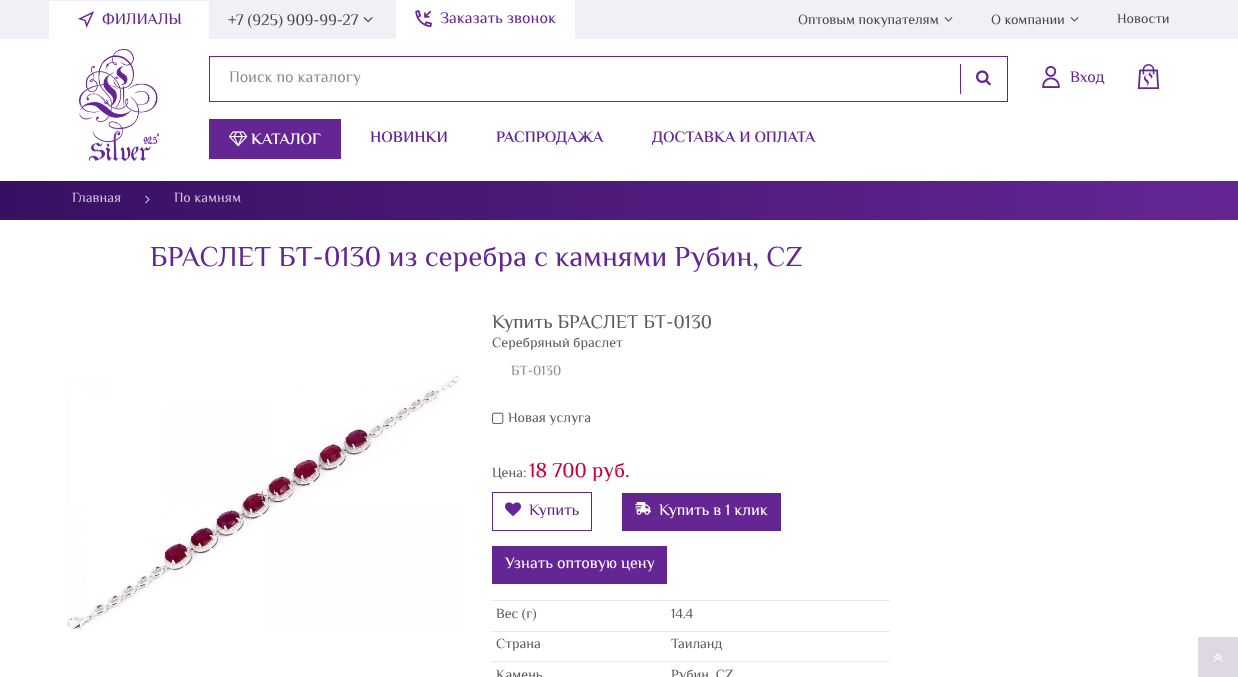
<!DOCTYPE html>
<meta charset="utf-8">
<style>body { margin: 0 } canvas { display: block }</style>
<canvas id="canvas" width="1238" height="677"></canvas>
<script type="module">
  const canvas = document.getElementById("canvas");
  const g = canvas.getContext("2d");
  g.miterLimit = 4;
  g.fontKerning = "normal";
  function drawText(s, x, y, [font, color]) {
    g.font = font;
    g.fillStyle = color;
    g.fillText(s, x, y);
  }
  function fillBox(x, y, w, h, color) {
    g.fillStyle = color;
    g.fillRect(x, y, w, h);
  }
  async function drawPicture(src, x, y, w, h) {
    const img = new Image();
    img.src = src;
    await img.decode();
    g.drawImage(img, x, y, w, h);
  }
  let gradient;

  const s1 = ["500 16px El Messiri", "#652694"];
  const s2 = ["16px El Messiri", "#484848"];
  const s3 = ["14px El Messiri", "#484848"];
  const s4 = ["16px El Messiri", "#652694"];
  const s5 = ["16px El Messiri", "#868E96"];
  const s6 = ["600 16px El Messiri", "#FFFFFF"];
  const s7 = ["600 16px El Messiri", "#652694"];
  const s8 = ["14px El Messiri", "#CEC4D9"];
  const s9 = ["28.8px El Messiri", "#652694"];
  const s10 = ["20px El Messiri", "#BA91A0"];
  const s11 = ["19.25px El Messiri", "#5A5A5A"];
  const s12 = ["14px El Messiri", "#5A5A5A"];
  const s13 = ["14px El Messiri", "#8C8C8C"];
  const s14 = ["21px El Messiri", "#CC0033"];
  const s15 = ["16px El Messiri", "#FFFFFF"];

  fillBox(0, 0, 1238, 677, "#FFFFFF");
  fillBox(0, 0, 1238, 39, "#F3EFF7");
  fillBox(49, 1, 160, 38, "#FFFFFF");
  await drawPicture("pic1.png", 78, 11, 17, 17);
  drawText("ФИЛИАЛЫ", 102, 24, s1);
  drawText("+7 (925) 909-99-27", 228, 25, s2);
  await drawPicture("pic2.png", 363, 17, 10, 6);
  drawText("Оптовым покупателям", 798, 24, s3);
  await drawPicture("pic3.png", 944, 17, 9, 5);
  drawText("О компании", 991, 24, s3);
  await drawPicture("pic3.png", 1070, 17, 9, 5);
  drawText("Новости", 1117, 23, s3);
  fillBox(396, 0, 179, 39, "#FFFFFF");
  await drawPicture("pic4.png", 415, 10, 17, 17);
  drawText("Заказать звонок", 440, 23, s4);
  await drawPicture("pic5.png", 79, 49, 80, 112);
  g.strokeStyle = "#652694";
  g.strokeRect(209.5, 56.5, 798, 45);
  drawText("Поиск по каталогу", 229, 82, s5);
  fillBox(960, 64, 1, 30, "#652694");
  await drawPicture("pic6.png", 976, 70, 15, 16);
  await drawPicture("pic7.png", 1042, 66, 18, 22);
  drawText("Вход", 1070, 82, s4);
  await drawPicture("pic8.png", 1137, 64, 23, 25);
  fillBox(209, 119, 132, 40, "#652694");
  await drawPicture("pic9.png", 229, 131, 19, 16);
  drawText("КАТАЛОГ", 251, 144, s6);
  drawText("НОВИНКИ", 370, 142, s7);
  drawText("РАСПРОДАЖА", 496, 142, s7);
  drawText("ДОСТАВКА И ОПЛАТА", 652, 142, s7);
  gradient = g.createLinearGradient(0, 200, 1238, 200);
  gradient.addColorStop(0, "#371063");
  gradient.addColorStop(1, "#652694");
  g.fillStyle = gradient;
  g.fillRect(0, 181, 1238, 39);
  drawText("Главная", 72, 202, s8);
  await drawPicture("pic10.png", 145, 195, 5, 9);
  drawText("По камням", 174, 202, s8);
  drawText("БРАСЛЕТ БТ-0130 из серебра с камнями Рубин, CZ", 150, 266, s9);
  await drawPicture("pic11.png", 66, 374, 393, 257);
  drawText("+", 257, 502, s10);
  drawText("Купить БРАСЛЕТ БТ-0130", 492, 328, s11);
  drawText("Серебряный браслет", 492, 347, s12);
  drawText("БТ-0130", 511, 375, s13);
  await drawPicture("pic12.png", 492, 412, 12, 12);
  drawText("Новая услуга", 508, 422, s12);
  drawText("Цена:", 492, 477, s12);
  drawText("18 700 руб.", 529, 477, s14);
  g.strokeRect(492.5, 492.5, 99, 38);
  await drawPicture("pic13.png", 505, 502, 16, 15);
  drawText("Купить", 529, 515, s4);
  fillBox(622, 493, 159, 38, "#652694");
  await drawPicture("pic14.png", 635, 502, 16, 13);
  drawText("Купить в 1 клик", 659, 515, s15);
  fillBox(492, 546, 175, 38, "#652694");
  drawText("Узнать оптовую цену", 505, 568, s15);
  drawText("Вес (г)", 496, 618, s12);
  fillBox(491, 600, 399, 1, "#E9ECEF");
  drawText("14.4", 671, 618, s12);
  drawText("Страна", 496, 648, s12);
  fillBox(491, 631, 399, 1, "#E9ECEF");
  drawText("Таиланд", 671, 648, s12);
  drawText("Камень", 496, 679, s12);
  fillBox(491, 661, 399, 1, "#E9ECEF");
  drawText("Рубин, CZ", 671, 679, s12);
  fillBox(1198, 637, 40, 40, "#DED8E5");
  await drawPicture("pic15.png", 1213, 653, 10, 9);
</script>
